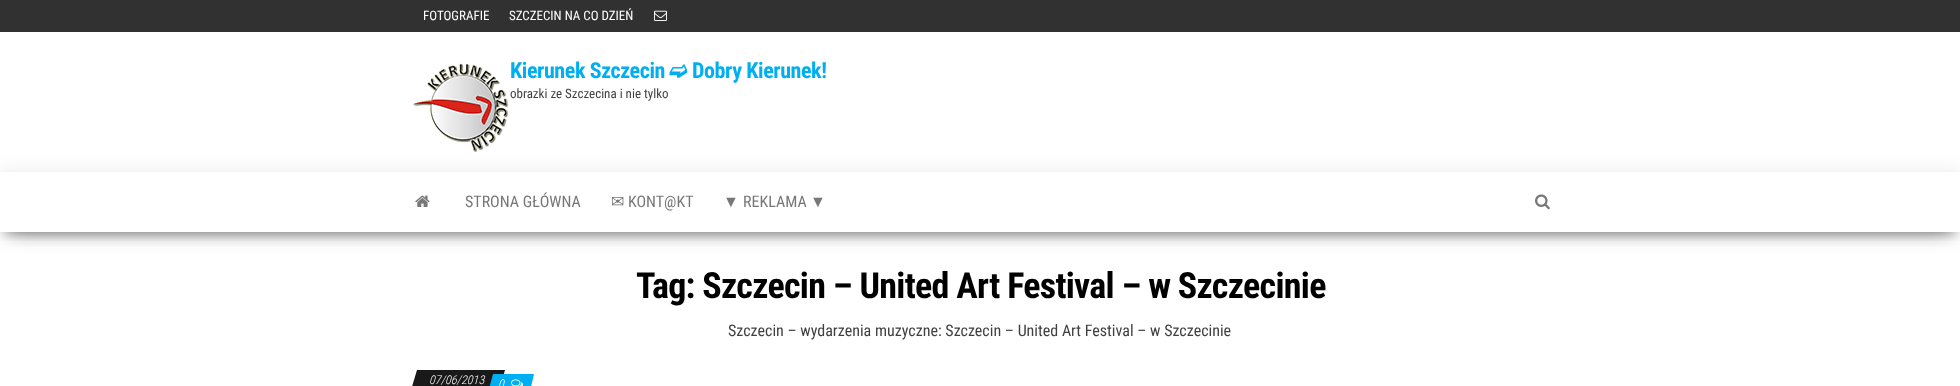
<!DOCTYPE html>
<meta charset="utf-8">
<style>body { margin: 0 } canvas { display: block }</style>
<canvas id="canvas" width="1960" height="386"></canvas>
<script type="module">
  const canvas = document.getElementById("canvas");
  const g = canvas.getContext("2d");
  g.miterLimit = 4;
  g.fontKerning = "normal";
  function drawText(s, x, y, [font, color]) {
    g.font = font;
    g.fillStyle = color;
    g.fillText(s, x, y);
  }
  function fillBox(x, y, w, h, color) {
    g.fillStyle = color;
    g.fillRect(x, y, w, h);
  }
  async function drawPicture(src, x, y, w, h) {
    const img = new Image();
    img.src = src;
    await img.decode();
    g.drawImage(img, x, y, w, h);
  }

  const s1 = ["13px Roboto Condensed", "#FFFFFF"];
  const s2 = ["bold 22px Roboto Condensed", "#00AFF2"];
  const s3 = ["bold 22px DejaVu Sans", "#00AFF2"];
  const s4 = ["13px Roboto Condensed", "#404040"];
  const s5 = ["16px Roboto Condensed", "#777777"];
  const s6 = ["16px DejaVu Sans", "#777777"];
  const s7 = ["16px Liberation Sans", "#777777"];
  const s8 = ["bold 36px Roboto Condensed", "#000000"];
  const s9 = ["16px Roboto Condensed", "#404040"];
  const s10 = ["italic 300 12px Roboto Condensed", "#FFFFFF"];

  fillBox(0, 0, 1960, 386, "#FFFFFF");
  fillBox(0, 0, 1960, 32, "#313131");
  drawText("FOTOGRAFIE", 423, 20, s1);
  drawText("SZCZECIN NA CO DZIEŃ", 509, 20, s1);
  await drawPicture("pic1.png", 654, 10, 13, 11);
  g.save();
  g.beginPath();
  g.moveTo(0, 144);
  g.lineTo(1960, 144);
  g.lineTo(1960, 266);
  g.lineTo(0, 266);
  g.closePath();
  g.moveTo(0, 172);
  g.lineTo(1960, 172);
  g.lineTo(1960, 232);
  g.lineTo(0, 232);
  g.closePath();
  g.clip("evenodd");
  g.fillStyle = "rgba(0, 0, 0, 0.12)";
  g.filter = "blur(10px)";
  g.beginPath();
  g.rect(0, 175, 1960, 60);
  g.fill();
  g.filter = "none";
  g.restore();
  await drawPicture("pic2.png", 413, 63, 95, 89);
  g.letterSpacing = "-0.4px";
  drawText("Kierunek Szczecin", 510, 78, s2);
  drawText("➫", 669, 78, s3);
  drawText("Dobry Kierunek!", 692, 78, s2);
  g.letterSpacing = "0px";
  drawText("obrazki ze Szczecina i nie tylko", 510, 98, s4);
  g.save();
  g.beginPath();
  g.rect(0, 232, 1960, 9);
  g.clip();
  g.fillStyle = "rgba(0, 0, 0, 0.2)";
  g.filter = "blur(5px)";
  g.beginPath();
  g.rect(5, 185, 1950, 50);
  g.fill();
  g.filter = "none";
  g.restore();
  g.save();
  g.beginPath();
  g.rect(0, 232, 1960, 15);
  g.clip();
  g.fillStyle = "rgba(0, 0, 0, 0.42)";
  g.filter = "blur(10px)";
  g.beginPath();
  g.rect(12, 194, 1936, 36);
  g.fill();
  g.filter = "none";
  g.restore();
  await drawPicture("pic3.png", 415, 195, 15, 12);
  drawText("STRONA GŁÓWNA", 465, 207, s5);
  drawText("✉", 611, 207, s6);
  drawText("KONT@KT", 628, 207, s5);
  drawText("▼", 723, 207, s7);
  drawText("REKLAMA", 743, 207, s5);
  drawText("▼", 810, 207, s7);
  await drawPicture("pic4.png", 1535, 194, 15, 16);
  g.letterSpacing = "-0.7px";
  drawText("Tag: Szczecin – United Art Festival – w Szczecinie", 636, 298, s8);
  g.letterSpacing = "0px";
  drawText("Szczecin – wydarzenia muzyczne: Szczecin – United Art Festival – w Szczecinie", 728, 336, s9);
  g.fillStyle = "#191919";
  g.beginPath();
  g.moveTo(417, 370);
  g.lineTo(505, 370);
  g.lineTo(499, 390);
  g.lineTo(411, 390);
  g.closePath();
  g.fill();
  drawText("07/06/2013", 429, 384, s10);
  g.fillStyle = "#00AFF2";
  g.beginPath();
  g.moveTo(493, 374);
  g.lineTo(534, 374);
  g.lineTo(529, 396);
  g.lineTo(487, 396);
  g.closePath();
  g.fill();
  drawText("0", 498, 388, s10);
  await drawPicture("pic5.png", 511, 379, 12, 7);
</script>
